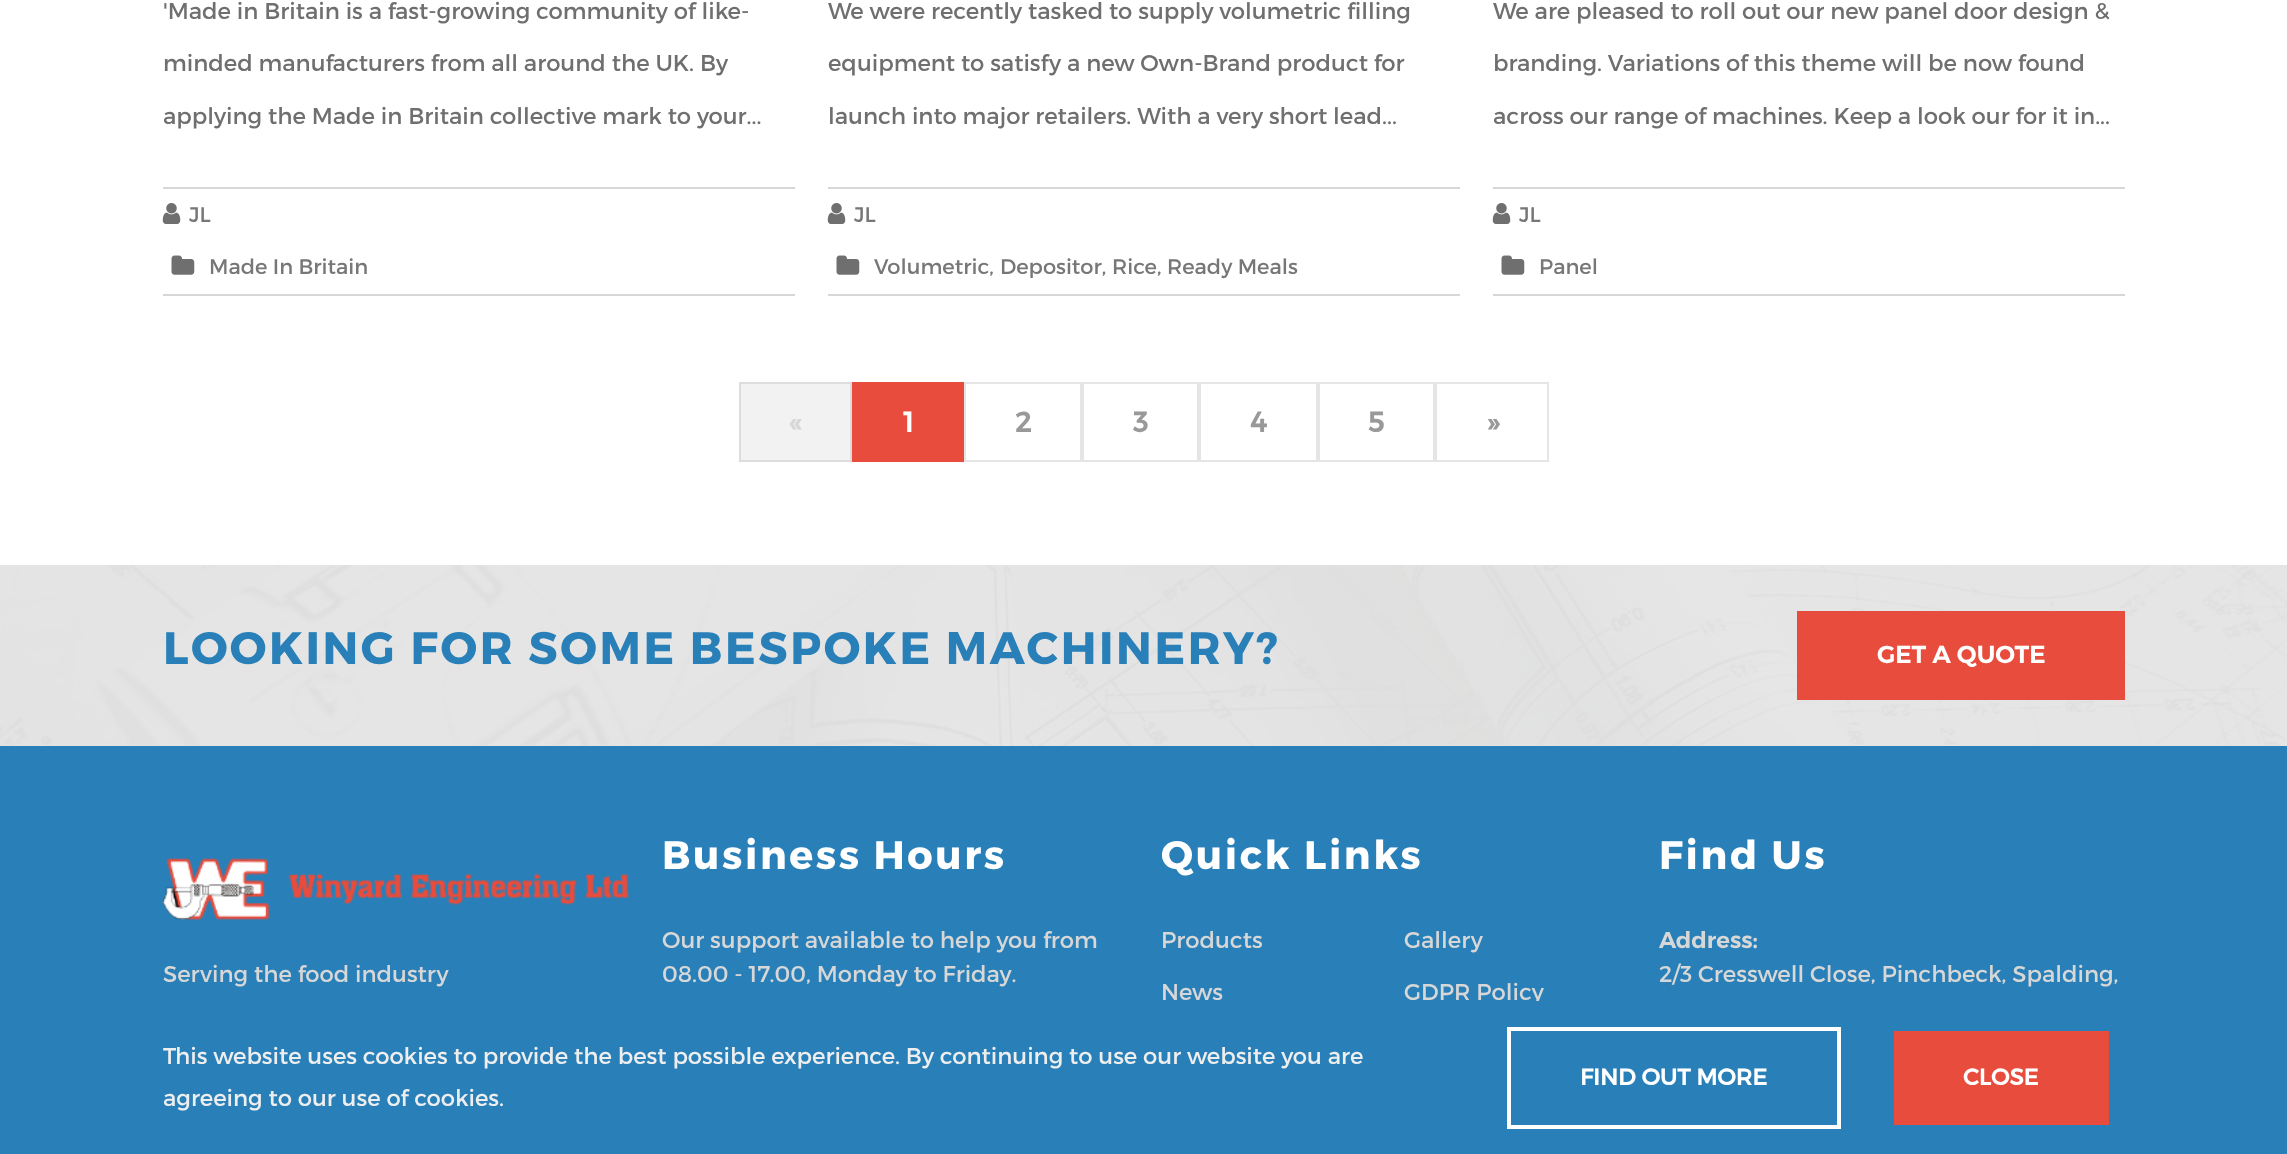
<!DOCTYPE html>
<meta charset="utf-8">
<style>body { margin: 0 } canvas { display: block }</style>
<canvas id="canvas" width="2287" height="1154"></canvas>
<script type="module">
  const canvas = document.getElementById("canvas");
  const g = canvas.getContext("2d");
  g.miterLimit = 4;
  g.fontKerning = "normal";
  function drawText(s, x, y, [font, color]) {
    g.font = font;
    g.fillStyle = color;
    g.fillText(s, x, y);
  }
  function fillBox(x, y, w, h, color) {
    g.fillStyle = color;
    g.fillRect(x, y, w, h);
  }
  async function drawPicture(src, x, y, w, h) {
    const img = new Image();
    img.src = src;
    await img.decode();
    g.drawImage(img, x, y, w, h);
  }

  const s1 = ["22.75px Montserrat", "#6F6F6F"];
  const s2 = ["21px Montserrat", "#777777"];
  const s3 = ["bold 28px Montserrat", "#D7D7D7"];
  const s4 = ["bold 28px Montserrat", "#FFFFFF"];
  const s5 = ["bold 28px Montserrat", "#999999"];
  const s6 = ["bold 45.5px 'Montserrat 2'", "#2980B9"];
  const s7 = ["600 24.5px Montserrat", "#FFFFFF"];
  const s8 = ["22.75px Montserrat", "#D7D7D7"];
  const s9 = ["bold 39.75px 'Montserrat 2'", "#FFFFFF"];
  const s10 = ["600 22.75px Montserrat", "#D7D7D7"];
  const s11 = ["22.75px Montserrat", "#EEEEEE"];
  const s12 = ["bold 22.75px Montserrat", "#FFFFFF"];

  fillBox(0, 0, 2287, 1154, "#FFFFFF");
  fillBox(0, 565, 2287, 181, "#E6E6E6");
  drawText("'Made in Britain is a fast-growing community of like-", 163, 19, s1);
  drawText("minded manufacturers from all around the UK. By", 163, 71, s1);
  drawText("applying the Made in Britain collective mark to your...", 163, 124, s1);
  fillBox(163, 187, 632, 2, "#D7D7D7");
  fillBox(163, 294, 632, 2, "#D7D7D7");
  await drawPicture("pic1.png", 162, 203, 19, 21);
  drawText("JL", 189, 222, s2);
  await drawPicture("pic2.png", 171, 255, 24, 20);
  drawText("Made In Britain", 209, 274, s2);
  drawText("We were recently tasked to supply volumetric filling", 828, 19, s1);
  drawText("equipment to satisfy a new Own-Brand product for", 828, 71, s1);
  drawText("launch into major retailers. With a very short lead...", 828, 124, s1);
  fillBox(828, 187, 632, 2, "#D7D7D7");
  fillBox(828, 294, 632, 2, "#D7D7D7");
  await drawPicture("pic1.png", 827, 203, 19, 21);
  drawText("JL", 854, 222, s2);
  await drawPicture("pic2.png", 836, 255, 24, 20);
  drawText("Volumetric,", 874, 274, s2);
  drawText("Depositor,", 1000, 274, s2);
  drawText("Rice,", 1112, 274, s2);
  drawText("Ready Meals", 1167, 274, s2);
  drawText("We are pleased to roll out our new panel door design &", 1493, 19, s1);
  drawText("branding. Variations of this theme will be now found", 1493, 71, s1);
  drawText("across our range of machines. Keep a look our for it in...", 1493, 124, s1);
  fillBox(1493, 187, 632, 2, "#D7D7D7");
  fillBox(1493, 294, 632, 2, "#D7D7D7");
  await drawPicture("pic1.png", 1492, 203, 19, 21);
  drawText("JL", 1519, 222, s2);
  await drawPicture("pic2.png", 1501, 255, 24, 20);
  drawText("Panel", 1539, 274, s2);
  g.fillStyle = "#F2F2F2";
  g.beginPath();
  g.rect(740, 383, 111, 78);
  g.fill();
  g.strokeStyle = "#DDDDDD";
  g.lineWidth = 2;
  g.stroke();
  drawText("«", 789, 432, s3);
  fillBox(852, 382, 112, 80, "#E74C3C");
  drawText("1", 903, 432, s4);
  g.strokeStyle = "#E5E5E5";
  g.strokeRect(965, 383, 116, 78);
  drawText("2", 1015, 432, s5);
  g.strokeRect(1083, 383, 115, 78);
  drawText("3", 1133, 432, s5);
  g.strokeRect(1200, 383, 117, 78);
  drawText("4", 1250, 432, s5);
  g.strokeRect(1319, 383, 115, 78);
  drawText("5", 1368, 432, s5);
  g.strokeRect(1436, 383, 112, 78);
  drawText("»", 1486, 432, s5);
  await drawPicture("pic3.png", 0, 565, 2287, 181);
  g.letterSpacing = "2.6px";
  drawText("LOOKING FOR SOME BESPOKE MACHINERY?", 163, 664, s6);
  fillBox(1797, 611, 328, 89, "#E74C3C");
  g.letterSpacing = "0px";
  drawText("GET A QUOTE", 1877, 663, s7);
  fillBox(0, 746, 2287, 255, "#2980B9");
  await drawPicture("pic4.png", 162, 858, 467, 62);
  drawText("Serving the food industry", 163, 982, s8);
  g.letterSpacing = "2.6px";
  drawText("Business Hours", 662, 869, s9);
  g.letterSpacing = "0px";
  drawText("Our support available to help you from", 662, 948, s8);
  drawText("08.00 - 17.00, Monday to Friday.", 662, 982, s8);
  g.letterSpacing = "2.6px";
  drawText("Quick Links", 1161, 869, s9);
  g.letterSpacing = "0px";
  drawText("Products", 1161, 948, s8);
  drawText("Gallery", 1404, 948, s8);
  drawText("News", 1161, 1000, s8);
  drawText("GDPR Policy", 1404, 1000, s8);
  g.letterSpacing = "2.6px";
  drawText("Find Us", 1659, 869, s9);
  g.letterSpacing = "0px";
  drawText("Address:", 1659, 948, s10);
  drawText("2/3 Cresswell Close, Pinchbeck, Spalding,", 1659, 982, s8);
  fillBox(0, 1001, 2287, 153, "#2980B9");
  drawText("This website uses cookies to provide the best possible experience. By continuing to use our website you are", 163, 1064, s11);
  drawText("agreeing to our use of cookies.", 163, 1106, s11);
  g.strokeStyle = "#FFFFFF";
  g.lineWidth = 4;
  g.strokeRect(1509, 1029, 330, 98);
  drawText("FIND OUT MORE", 1580, 1085, s12);
  fillBox(1894, 1031, 215, 94, "#E74C3C");
  drawText("CLOSE", 1963, 1085, s12);
</script>
